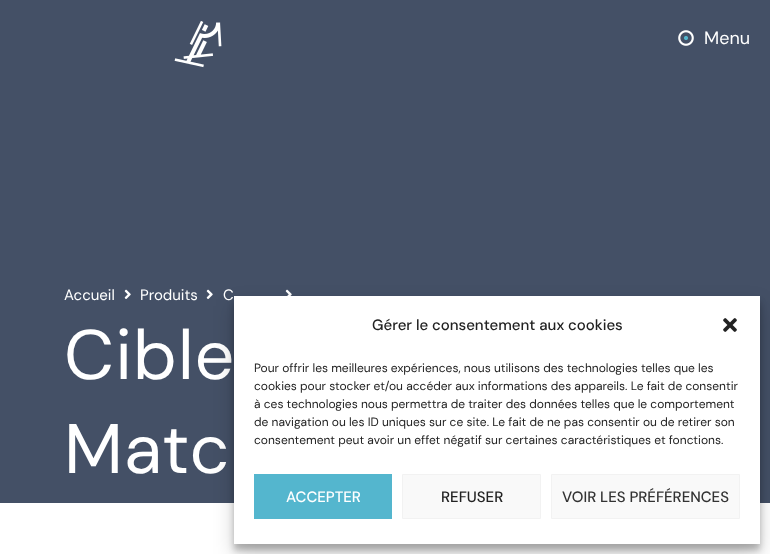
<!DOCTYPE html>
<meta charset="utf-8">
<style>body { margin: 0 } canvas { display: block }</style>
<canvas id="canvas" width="770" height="554"></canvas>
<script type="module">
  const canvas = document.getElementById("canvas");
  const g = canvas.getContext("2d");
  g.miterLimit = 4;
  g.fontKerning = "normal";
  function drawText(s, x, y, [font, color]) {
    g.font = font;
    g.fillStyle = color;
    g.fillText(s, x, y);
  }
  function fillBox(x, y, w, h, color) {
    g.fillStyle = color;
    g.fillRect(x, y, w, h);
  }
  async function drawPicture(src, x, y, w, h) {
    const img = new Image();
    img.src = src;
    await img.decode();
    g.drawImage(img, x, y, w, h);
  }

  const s1 = ["18px DM Sans", "#FFFFFF"];
  const s2 = ["15px DM Sans", "#FFFFFF"];
  const s3 = ["70px DM Sans", "#FFFFFF"];
  const s4 = ["500 15px DM Sans", "#222222"];
  const s5 = ["12px DM Sans", "#222222"];
  const s6 = ["500 15px DM Sans", "#FFFFFF"];
  const s7 = ["500 15px DM Sans", "#333333"];

  fillBox(0, 0, 770, 554, "#FFFFFF");
  fillBox(0, 0, 770, 503, "#445066");
  await drawPicture("pic1.png", 174, 21, 48, 47);
  await drawPicture("pic2.png", 678, 30, 16, 16);
  drawText("Menu", 704, 44, s1);
  drawText("Accueil", 64, 300, s2);
  await drawPicture("pic3.png", 124, 289, 7, 10);
  drawText("Produits", 140, 300, s2);
  await drawPicture("pic3.png", 206, 289, 7, 10);
  drawText("C", 223, 300, s2);
  await drawPicture("pic4.png", 285, 289, 7, 7);
  g.letterSpacing = "1px";
  drawText("Cible", 64, 379, s3);
  drawText("Matc", 64, 473, s3);
  g.fillStyle = "rgba(0, 0, 0, 0.23)";
  g.filter = "blur(3px)";
  g.beginPath();
  g.rect(234, 302, 526, 248);
  g.fill();
  g.filter = "none";
  g.fillStyle = "rgba(0, 0, 0, 0.19)";
  g.filter = "blur(10px)";
  g.beginPath();
  g.rect(234, 306, 526, 248);
  g.fill();
  g.filter = "none";
  fillBox(234, 296, 526, 248, "#FFFFFF");
  g.letterSpacing = "0px";
  drawText("Gérer le consentement aux cookies", 372, 330, s4);
  await drawPicture("pic5.png", 723, 318, 14, 14);
  drawText("Pour offrir les meilleures expériences, nous utilisons des technologies telles que les", 254, 372, s5);
  drawText("cookies pour stocker et/ou accéder aux informations des appareils. Le fait de consentir", 254, 390, s5);
  drawText("à ces technologies nous permettra de traiter des données telles que le comportement", 254, 408, s5);
  drawText("de navigation ou les ID uniques sur ce site. Le fait de ne pas consentir ou de retirer son", 254, 426, s5);
  drawText("consentement peut avoir un effet négatif sur certaines caractéristiques et fonctions.", 254, 444, s5);
  fillBox(254, 474, 138, 45, "#54B6CE");
  drawText("ACCEPTER", 286, 502, s6);
  g.fillStyle = "#F9F9F9";
  g.beginPath();
  g.rect(402.5, 474.5, 138, 44);
  g.fill();
  g.strokeStyle = "#F2F2F2";
  g.stroke();
  drawText("REFUSER", 441, 502, s4);
  g.fillStyle = "#F9F9F9";
  g.beginPath();
  g.rect(551.5, 474.5, 188, 44);
  g.fill();
  g.stroke();
  drawText("VOIR LES PRÉFÉRENCES", 562, 502, s7);
</script>
